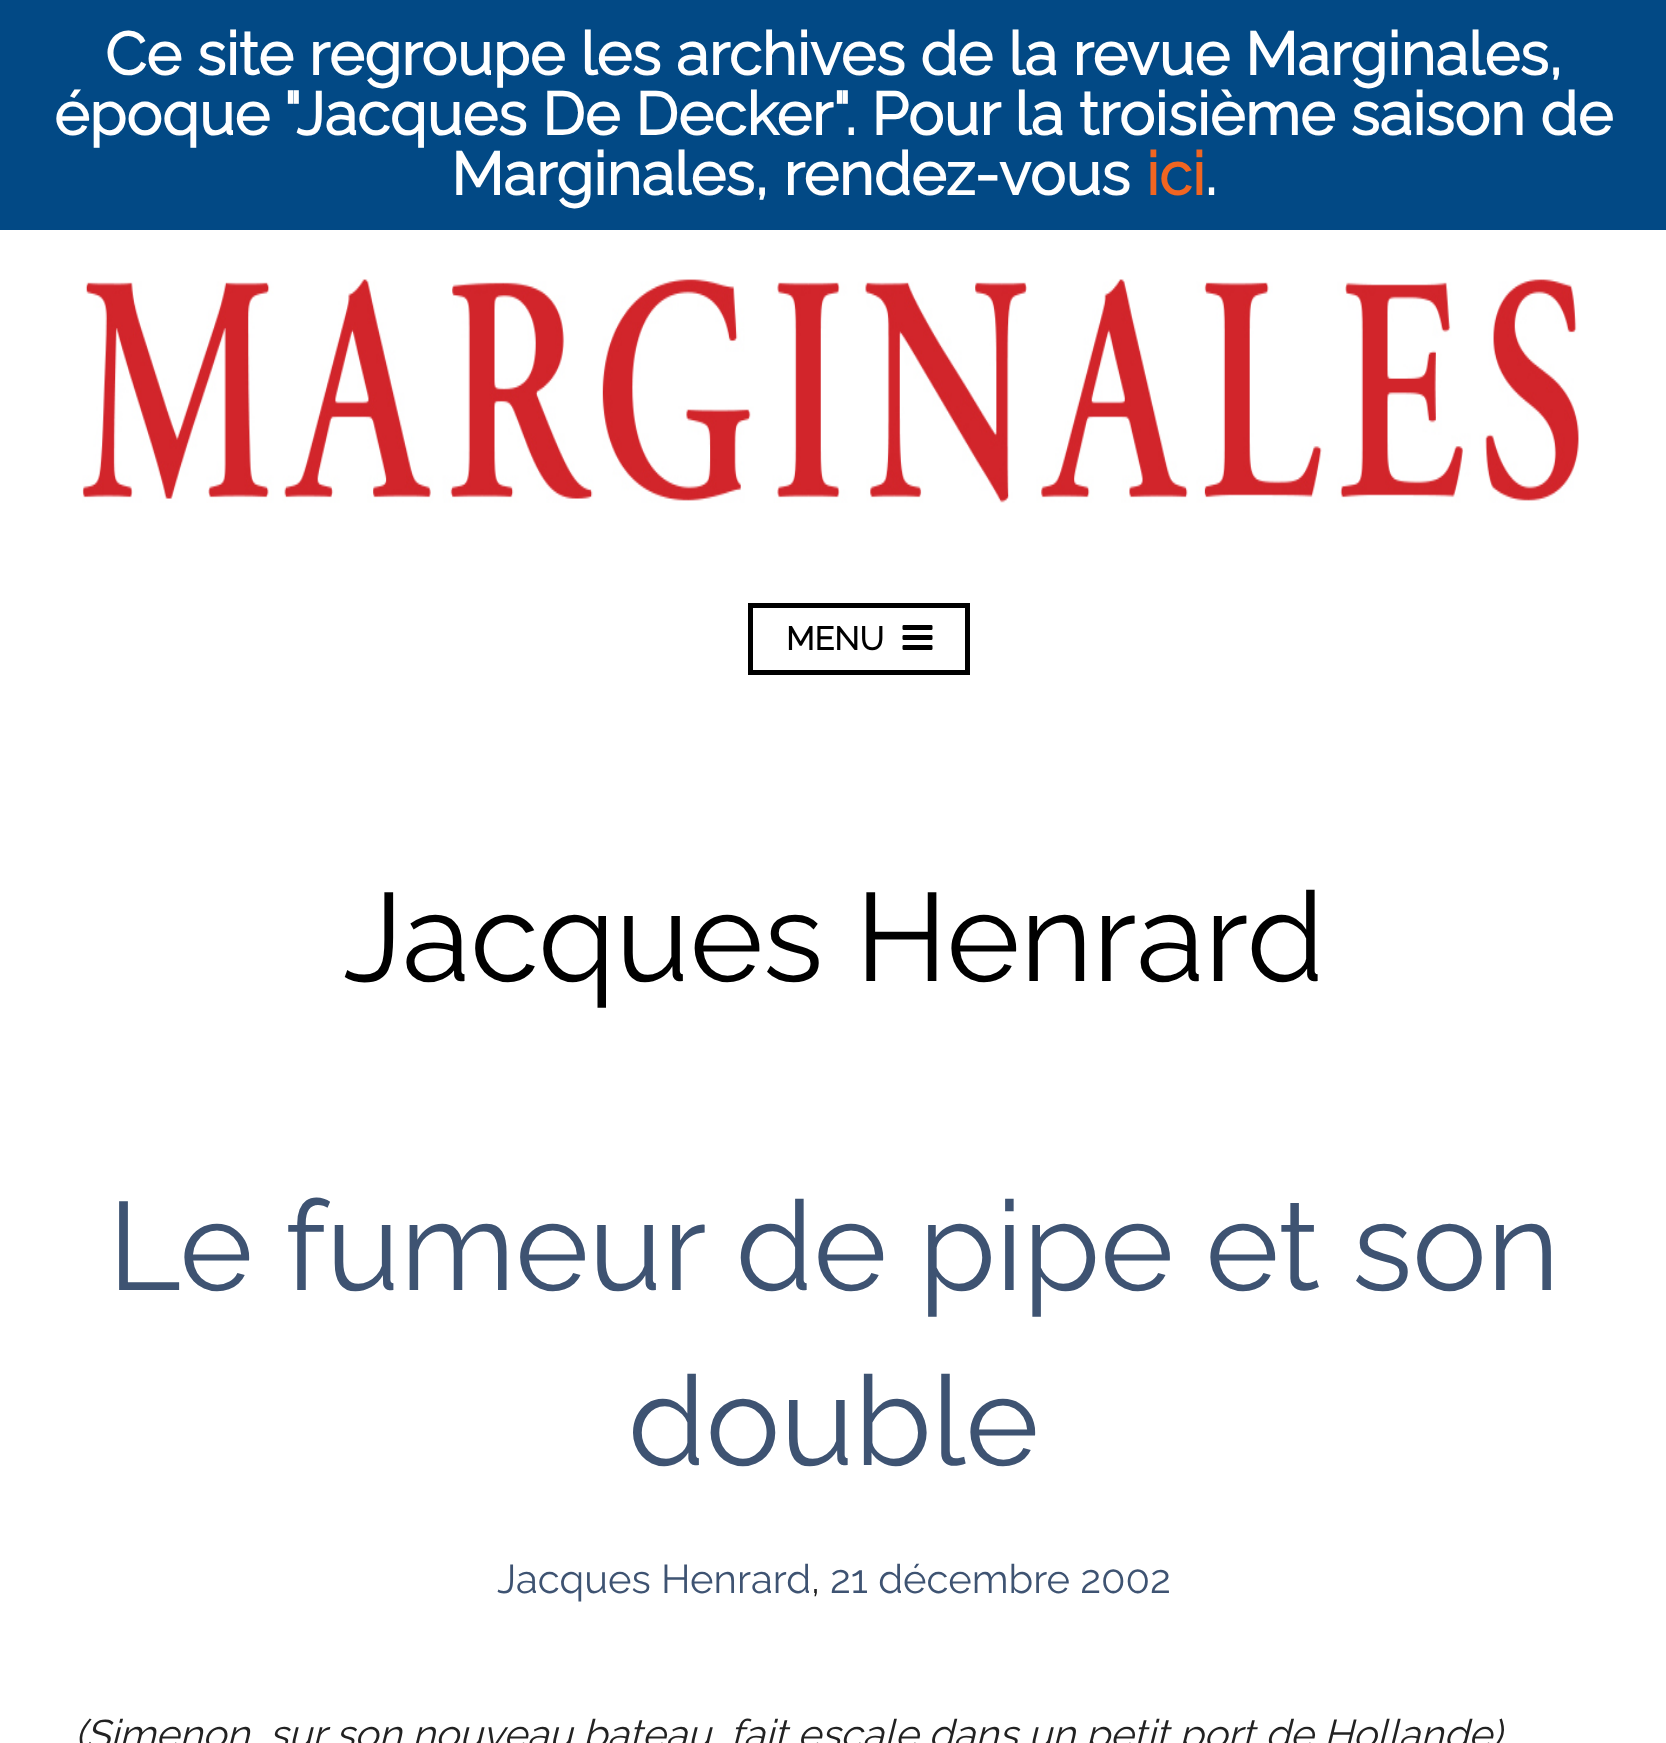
<!DOCTYPE html>
<meta charset="utf-8">
<style>body { margin: 0 } canvas { display: block }</style>
<canvas id="canvas" width="1666" height="1743"></canvas>
<script type="module">
  const canvas = document.getElementById("canvas");
  const g = canvas.getContext("2d");
  g.miterLimit = 4;
  g.fontKerning = "normal";
  function drawText(s, x, y, [font, color]) {
    g.font = font;
    g.fillStyle = color;
    g.fillText(s, x, y);
  }
  function fillBox(x, y, w, h, color) {
    g.fillStyle = color;
    g.fillRect(x, y, w, h);
  }
  async function drawPicture(src, x, y, w, h) {
    const img = new Image();
    img.src = src;
    await img.decode();
    g.drawImage(img, x, y, w, h);
  }

  const s1 = ["bold 60px Raleway", "#FFFFFF"];
  const s2 = ["bold 60px Raleway", "#F16521"];
  const s3 = ["bold 32.5px Raleway", "#000000"];
  const s4 = ["100 125px Raleway", "#000000"];
  const s5 = ["100 125px Raleway", "#3E5372"];
  const s6 = ["100 40px Raleway", "#3E5372"];
  const s7 = ["100 40px Raleway", "#222222"];
  const s8 = ["italic 100 40px Raleway", "#222222"];

  fillBox(0, 0, 1666, 1743, "#FFFFFF");
  fillBox(0, 0, 1666, 230, "#024985");
  drawText("Ce site regroupe les archives de la revue Marginales,", 105, 75, s1);
  drawText("époque \"Jacques De Decker\". Pour la troisième saison de", 54, 135, s1);
  drawText("Marginales, rendez-vous", 451, 195, s1);
  drawText("ici", 1146, 195, s2);
  drawText(".", 1205, 195, s1);
  await drawPicture("pic1.png", 82, 279, 1497, 224);
  g.strokeStyle = "#000000";
  g.lineWidth = 5;
  g.strokeRect(750.5, 605.5, 217, 67);
  drawText("MENU", 786, 650, s3);
  await drawPicture("pic2.png", 902, 625, 31, 25);
  drawText("Jacques Henrard", 343, 981, s4);
  drawText("Le fumeur de pipe et son", 108, 1290, s5);
  drawText("double", 628, 1465, s5);
  drawText("Jacques Henrard", 497, 1593, s6);
  drawText(",", 811, 1593, s7);
  drawText("21 décembre 2002", 830, 1593, s6);
  drawText("(Simenon, sur son nouveau bateau, fait escale dans un petit port de Hollande)", 75, 1748, s8);
</script>
